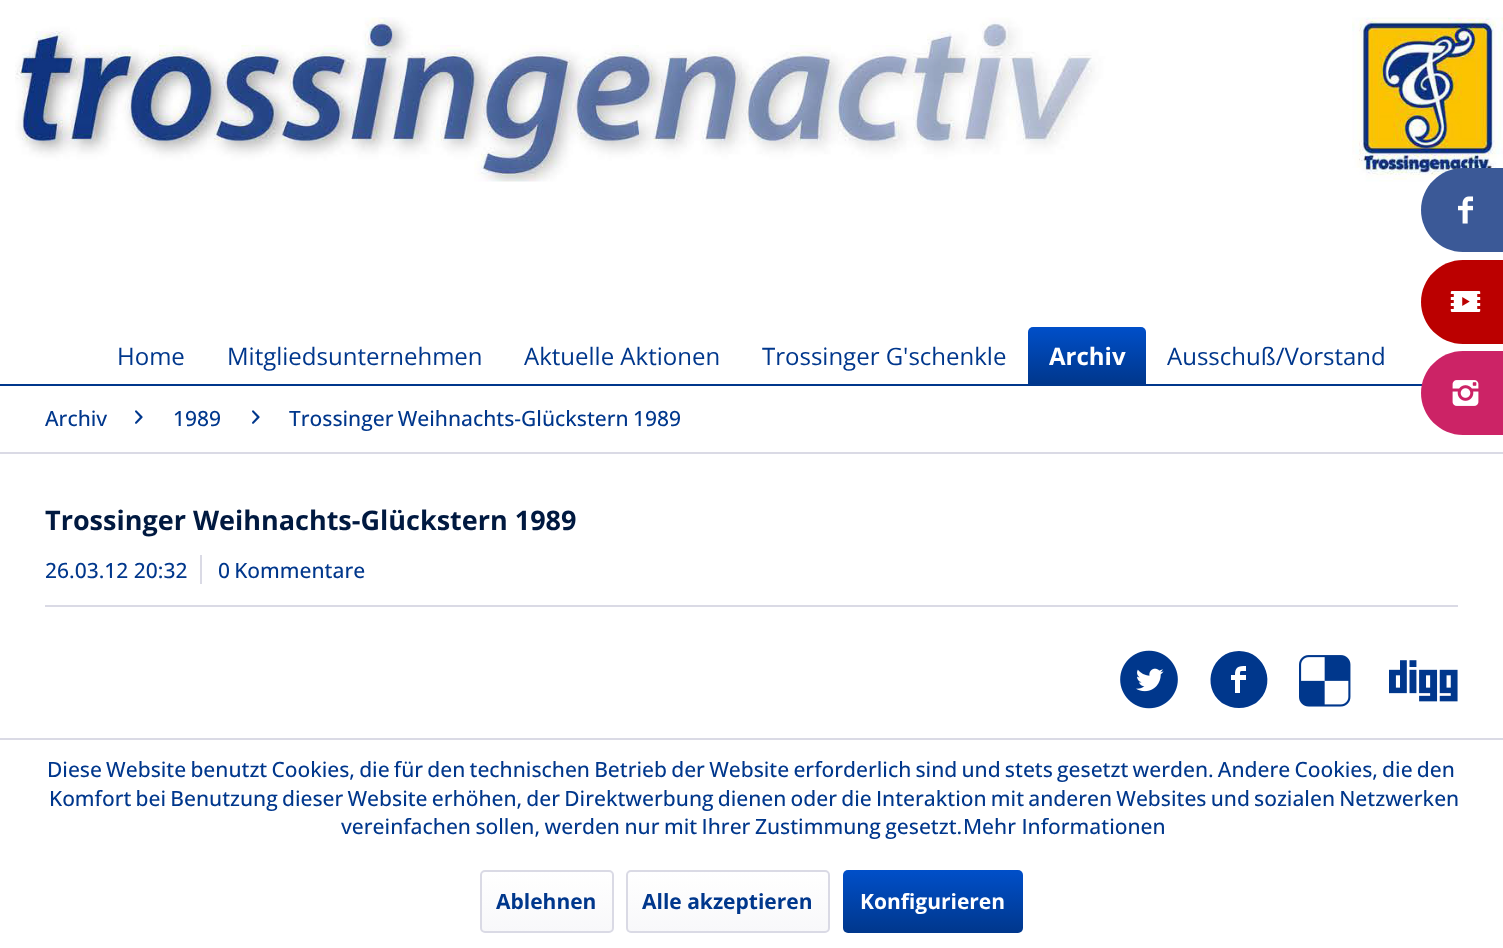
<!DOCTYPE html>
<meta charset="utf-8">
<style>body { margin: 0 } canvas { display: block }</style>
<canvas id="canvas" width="1503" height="948"></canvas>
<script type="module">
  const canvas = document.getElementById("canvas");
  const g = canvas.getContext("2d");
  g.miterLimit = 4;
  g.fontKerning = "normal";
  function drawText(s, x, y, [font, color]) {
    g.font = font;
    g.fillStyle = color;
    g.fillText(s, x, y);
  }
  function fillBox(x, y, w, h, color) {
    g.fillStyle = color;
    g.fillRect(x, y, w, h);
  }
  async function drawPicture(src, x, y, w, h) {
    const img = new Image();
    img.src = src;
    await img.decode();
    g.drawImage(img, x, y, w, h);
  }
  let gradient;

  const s1 = ["24px Open Sans", "#00378C"];
  const s2 = ["bold 24px Open Sans", "#FFFFFF"];
  const s3 = ["500 21px Open Sans", "#00378C"];
  const s4 = ["bold 27px Open Sans", "#001940"];
  const s5 = ["bold 21px Open Sans", "#00378C"];
  const s6 = ["bold 21px Open Sans", "#FFFFFF"];

  fillBox(0, 0, 1503, 948, "#FFFFFF");
  await drawPicture("pic4.png", 15, 17, 1488, 165);
  g.fillStyle = "#3B5997";
  g.beginPath();
  g.moveTo(1463, 168);
  g.lineTo(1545, 168);
  g.lineTo(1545, 252);
  g.lineTo(1463, 252);
  g.bezierCurveTo(1440, 252, 1421, 233, 1421, 210);
  g.bezierCurveTo(1421, 187, 1440, 168, 1463, 168);
  g.closePath();
  g.fill();
  await drawPicture("pic1.png", 1458, 196, 15, 28);
  g.fillStyle = "#BB0000";
  g.beginPath();
  g.moveTo(1463, 260);
  g.lineTo(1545, 260);
  g.lineTo(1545, 344);
  g.lineTo(1463, 344);
  g.bezierCurveTo(1440, 344, 1421, 325, 1421, 302);
  g.bezierCurveTo(1421, 279, 1440, 260, 1463, 260);
  g.closePath();
  g.fill();
  await drawPicture("pic2.png", 1450, 291, 31, 21);
  fillBox(0, 384, 1422, 2, "#00378C");
  g.fillStyle = "#CC2366";
  g.beginPath();
  g.moveTo(1463, 351);
  g.lineTo(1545, 351);
  g.lineTo(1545, 435);
  g.lineTo(1463, 435);
  g.bezierCurveTo(1440, 435, 1421, 416, 1421, 393);
  g.bezierCurveTo(1421, 370, 1440, 351, 1463, 351);
  g.closePath();
  g.fill();
  await drawPicture("pic3.png", 1452, 380, 27, 26);
  drawText("Home", 117, 365, s1);
  drawText("Mitgliedsunternehmen", 227, 365, s1);
  drawText("Aktuelle Aktionen", 524, 365, s1);
  drawText("Trossinger G'schenkle", 762, 365, s1);
  gradient = g.createLinearGradient(1087, 327, 1087, 384);
  gradient.addColorStop(0, "#004FC9");
  gradient.addColorStop(1, "#00378C");
  g.fillStyle = gradient;
  g.beginPath();
  g.roundRect(1028, 327, 118, 57, [5, 5, 0, 0]);
  g.fill();
  drawText("Archiv", 1049, 365, s2);
  drawText("Ausschuß/Vorstand", 1167, 365, s1);
  fillBox(0, 452, 1503, 2, "#DADAE5");
  drawText("Archiv", 45, 426, s3);
  await drawPicture("pic5.png", 135, 410, 8, 14);
  drawText("1989", 173, 426, s3);
  await drawPicture("pic5.png", 252, 410, 8, 14);
  g.wordSpacing = "-1.25px";
  drawText("Trossinger Weihnachts-Glückstern 1989", 289, 426, s3);
  g.wordSpacing = "0px";
  drawText("Trossinger Weihnachts-Glückstern 1989", 45, 530, s4);
  fillBox(45, 605, 1413, 2, "#DADAE5");
  fillBox(200, 555, 2, 29, "#DADAE5");
  drawText("26.03.12 20:32", 45, 578, s3);
  g.wordSpacing = "-1.25px";
  drawText("0 Kommentare", 218, 578, s3);
  await drawPicture("pic6.png", 1120, 650, 58, 59);
  g.beginPath();
  g.moveTo(1239, 651);
  g.bezierCurveTo(1212, 651, 1200, 686, 1222, 703);
  g.bezierCurveTo(1227, 706, 1233, 708, 1239, 708);
  g.bezierCurveTo(1245, 708, 1251, 706, 1256, 703);
  g.bezierCurveTo(1278, 686, 1266, 651, 1239, 651);
  g.closePath();
  g.moveTo(1246, 671);
  g.bezierCurveTo(1240, 671, 1240, 670, 1240, 675);
  g.lineTo(1246, 675);
  g.lineTo(1246, 680);
  g.lineTo(1240, 680);
  g.lineTo(1240, 693);
  g.lineTo(1235, 693);
  g.lineTo(1235, 680);
  g.lineTo(1231, 680);
  g.lineTo(1231, 675);
  g.lineTo(1235, 675);
  g.bezierCurveTo(1235, 667, 1238, 666, 1246, 666);
  g.closePath();
  g.fill();
  await drawPicture("pic7.png", 1299, 655, 52, 52);
  await drawPicture("pic8.png", 1389, 660, 69, 42);
  fillBox(0, 738, 1503, 2, "#DADAE5");
  drawText("Diese Website benutzt Cookies, die für den technischen Betrieb der Website erforderlich sind und stets gesetzt werden. Andere Cookies, die den", 47, 777, s3);
  drawText("Komfort bei Benutzung dieser Website erhöhen, der Direktwerbung dienen oder die Interaktion mit anderen Websites und sozialen Netzwerken", 49, 806, s3);
  g.wordSpacing = "-1px";
  drawText("vereinfachen sollen, werden nur mit Ihrer Zustimmung gesetzt.", 341, 834, s3);
  g.wordSpacing = "0px";
  drawText("Mehr Informationen", 963, 834, s3);
  gradient = g.createLinearGradient(547, 872, 547, 932);
  gradient.addColorStop(0, "#FFFFFF");
  gradient.addColorStop(1, "#F8F8FA");
  g.fillStyle = gradient;
  g.beginPath();
  g.roundRect(482, 872, 130, 60, 3);
  g.fill();
  g.beginPath();
  g.roundRect(481, 871, 132, 61, 4);
  g.strokeStyle = "#DADAE5";
  g.lineWidth = 2;
  g.stroke();
  drawText("Ablehnen", 496, 909, s5);
  gradient = g.createLinearGradient(728, 872, 728, 932);
  gradient.addColorStop(0, "#FFFFFF");
  gradient.addColorStop(1, "#F8F8FA");
  g.fillStyle = gradient;
  g.beginPath();
  g.roundRect(627, 872, 201, 60, 3);
  g.fill();
  g.beginPath();
  g.roundRect(627, 871, 202, 61, 4);
  g.stroke();
  drawText("Alle akzeptieren", 642, 909, s5);
  gradient = g.createLinearGradient(933, 870, 933, 933);
  gradient.addColorStop(0, "#004FC9");
  gradient.addColorStop(1, "#00378C");
  g.fillStyle = gradient;
  g.beginPath();
  g.roundRect(843, 870, 180, 63, 5);
  g.fill();
  drawText("Konfigurieren", 860, 909, s6);
</script>
